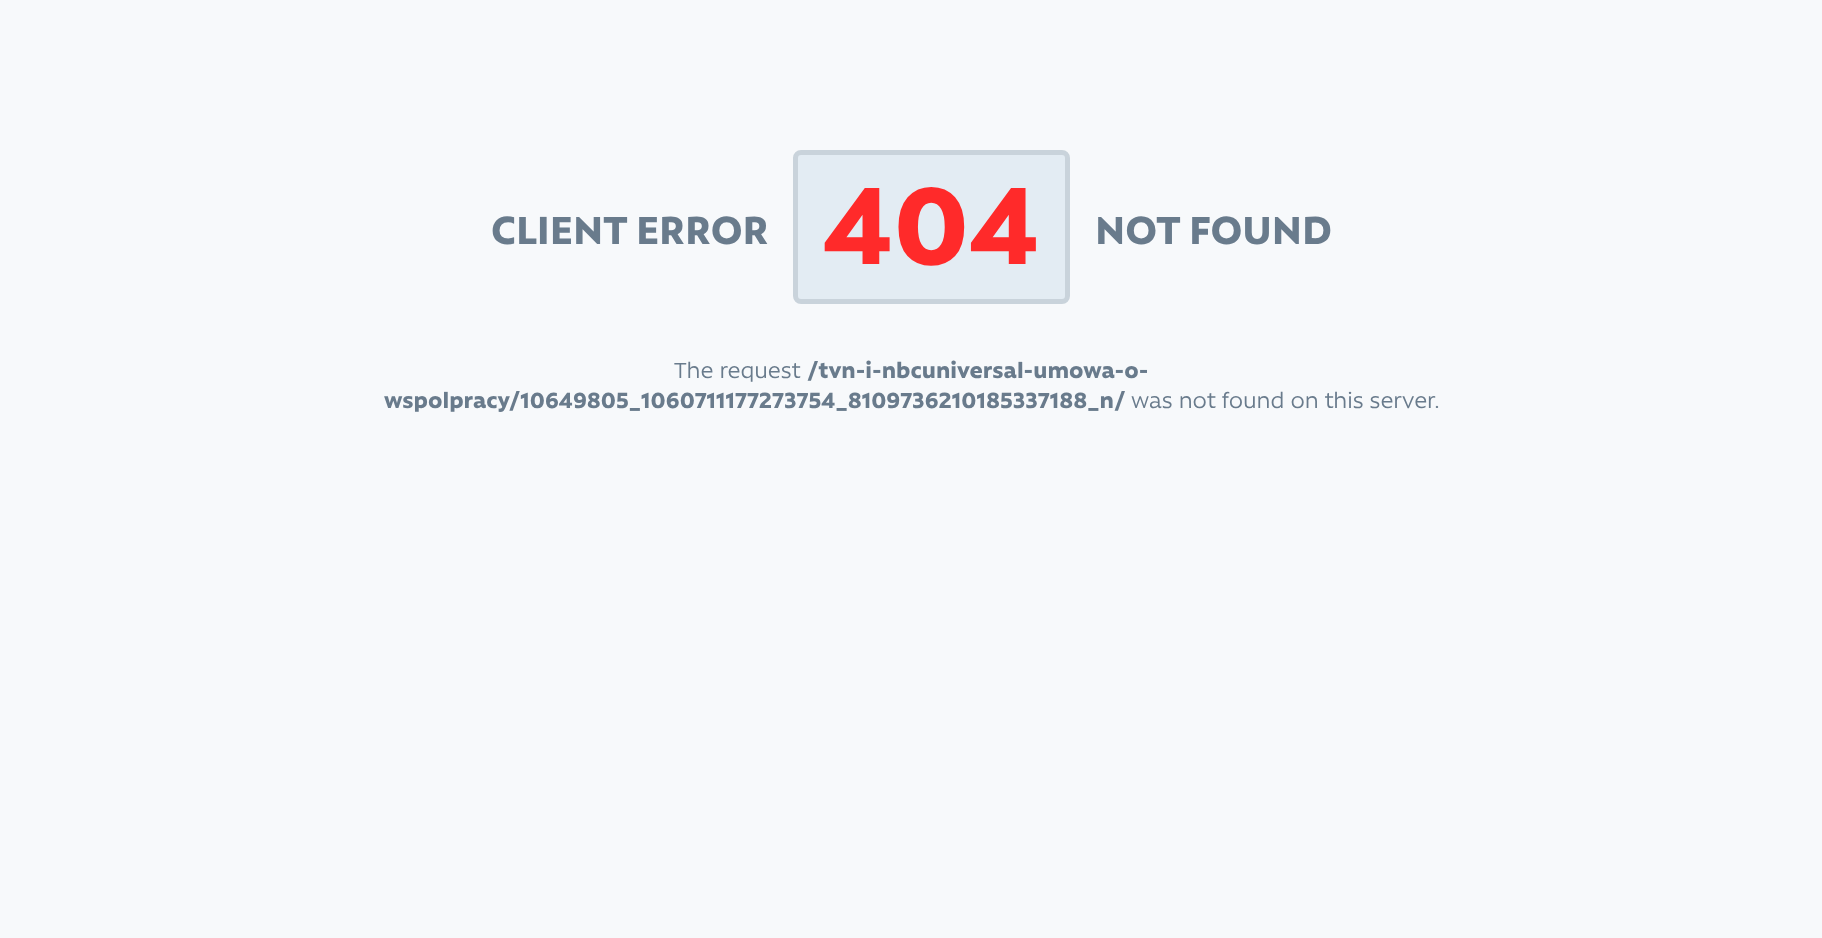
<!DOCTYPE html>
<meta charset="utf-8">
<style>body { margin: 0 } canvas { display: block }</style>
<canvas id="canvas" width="1822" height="938"></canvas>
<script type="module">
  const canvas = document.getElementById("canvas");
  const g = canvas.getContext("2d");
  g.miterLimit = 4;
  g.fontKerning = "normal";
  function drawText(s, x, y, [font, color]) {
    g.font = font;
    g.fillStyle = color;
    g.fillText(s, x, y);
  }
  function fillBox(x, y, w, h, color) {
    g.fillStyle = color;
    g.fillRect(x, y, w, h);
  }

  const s1 = ["bold 45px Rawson", "#697B8C"];
  const s2 = ["bold 125px Rawson", "#FF2A2A"];
  const s3 = ["25px Rawson", "#697B8C"];
  const s4 = ["bold 25px Rawson", "#697B8C"];

  fillBox(0, 0, 1822, 938, "#F7F9FB");
  drawText("CLIENT ERROR", 491, 244, s1);
  g.fillStyle = "#E3ECF3";
  g.beginPath();
  g.roundRect(795.5, 152.5, 272, 149, 5.5);
  g.fill();
  g.strokeStyle = "#C9D3DB";
  g.lineWidth = 5;
  g.stroke();
  drawText("404", 823, 264, s2);
  drawText("NOT FOUND", 1095, 244, s1);
  drawText("The request", 674, 378, s3);
  drawText("/tvn-i-nbcuniversal-umowa-o-", 807, 378, s4);
  drawText("wspolpracy/10649805_1060711177273754_8109736210185337188_n/", 384, 408, s4);
  drawText("was not found on this server.", 1131, 408, s3);
</script>
